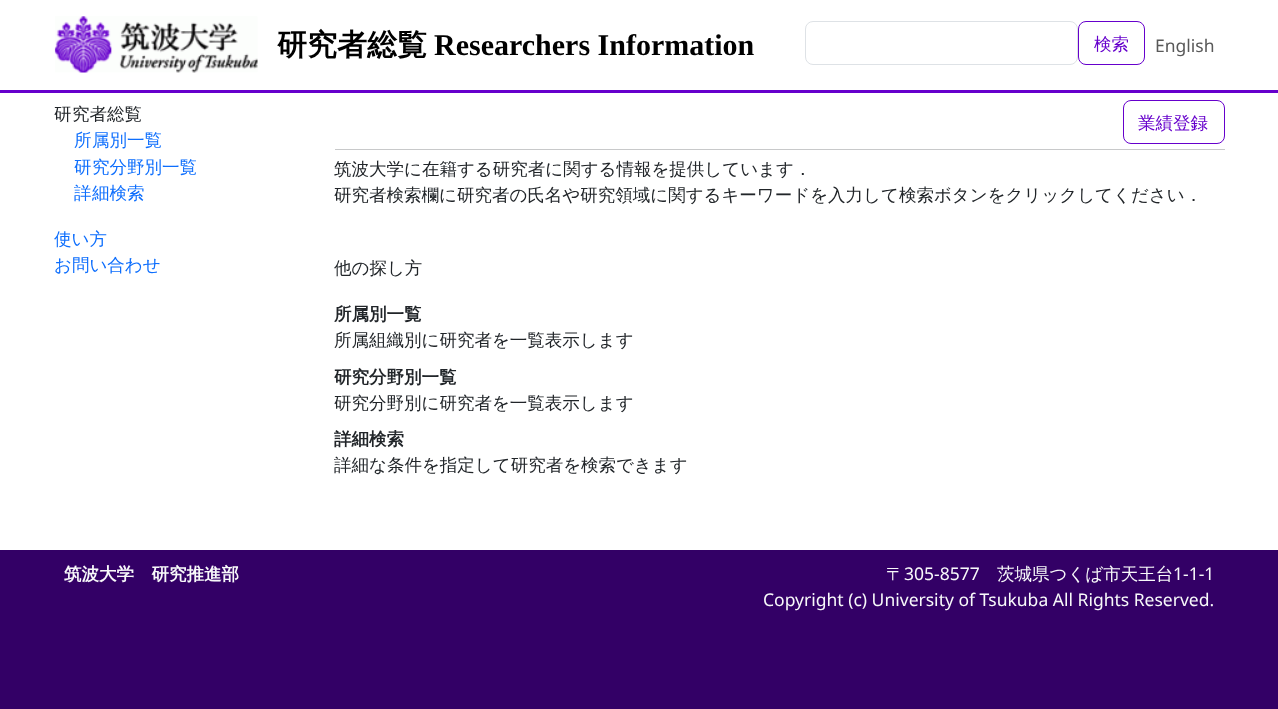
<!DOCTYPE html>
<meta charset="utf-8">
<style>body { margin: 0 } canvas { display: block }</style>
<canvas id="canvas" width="1278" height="709"></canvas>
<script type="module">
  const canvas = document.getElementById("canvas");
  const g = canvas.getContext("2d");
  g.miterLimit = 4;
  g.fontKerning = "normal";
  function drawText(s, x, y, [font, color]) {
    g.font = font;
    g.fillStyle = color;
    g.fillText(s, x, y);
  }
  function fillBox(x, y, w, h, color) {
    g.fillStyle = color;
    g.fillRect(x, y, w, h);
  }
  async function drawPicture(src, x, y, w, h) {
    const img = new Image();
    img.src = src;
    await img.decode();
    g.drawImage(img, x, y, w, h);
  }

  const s1 = ["bold 30px WenQuanYi Zen Hei", "#000000"];
  const s2 = ["bold 30px Liberation Serif", "#000000"];
  const s3 = ["500 17.5px WenQuanYi Zen Hei", "#6600CC"];
  const s4 = ["17.5px Noto Sans", "#595959"];
  const s5 = ["100 17.5px Noto Sans", "#212529"];
  const s6 = ["500 17.5px WenQuanYi Zen Hei", "#212529"];
  const s7 = ["100 17.5px Noto Sans", "#0D6EFD"];
  const s8 = ["500 17.5px WenQuanYi Zen Hei", "#0D6EFD"];
  const s9 = ["bold 17.5px WenQuanYi Zen Hei", "#212529"];
  const s10 = ["bold 17.5px WenQuanYi Zen Hei", "#F8F9FA"];
  const s11 = ["500 17.5px WenQuanYi Zen Hei", "#F8F9FA"];
  const s12 = ["17.5px Noto Sans", "#F8F9FA"];

  fillBox(0, 0, 1278, 709, "#FFFFFF");
  fillBox(0, 90, 1278, 3, "#6600CC");
  await drawPicture("pic1.png", 54, 16, 204, 57);
  drawText("研究者総覧", 277, 55, s1);
  drawText("Researchers Information", 434, 55, s2);
  g.beginPath();
  g.roundRect(805.5, 21.5, 272, 43, 7.5);
  g.strokeStyle = "#DEE2E6";
  g.stroke();
  g.beginPath();
  g.roundRect(1078.5, 21.5, 66, 43, 7.5);
  g.strokeStyle = "#6600CC";
  g.stroke();
  drawText("検索", 1094, 50, s3);
  drawText("English", 1155, 52, s4);
  drawText("研", 54, 120, s5);
  drawText("究者総覧", 72, 120, s6);
  drawText("所", 74, 146, s7);
  drawText("属別一覧", 92, 146, s8);
  drawText("研", 74, 173, s7);
  drawText("究分野別一覧", 92, 173, s8);
  drawText("詳", 74, 199, s7);
  drawText("細検索", 92, 199, s8);
  drawText("使い方", 54, 245, s8);
  drawText("お問い合わせ", 54, 271, s8);
  g.beginPath();
  g.roundRect(1123.5, 100.5, 101, 43, 7.5);
  g.stroke();
  drawText("業績登録", 1138, 129, s3);
  fillBox(335, 149, 890, 1, "#C8C9CA");
  drawText("筑波大学に在籍する研究者に関する情報を提供しています．", 334, 175, s6);
  drawText("研究者検索欄に研究者の氏名や研究領域に関するキーワードを入力して検索ボタンをクリックしてください．", 334, 201, s6);
  drawText("他の探し方", 334, 274, s6);
  drawText("所属別一覧", 334, 320, s9);
  drawText("所属組織別に研究者を一覧表示します", 334, 346, s6);
  drawText("研究分野別一覧", 334, 383, s9);
  drawText("研究分野別に研究者を一覧表示します", 334, 409, s6);
  drawText("詳細検索", 334, 445, s9);
  drawText("詳細な条件を指定して研究者を検索できます", 334, 471, s6);
  fillBox(0, 550, 1278, 159, "#330066");
  drawText("筑波大学　研究推進部", 64, 580, s10);
  drawText("〒", 886, 580, s11);
  drawText("305-8577", 904, 580, s12);
  drawText("茨城県つくば市天王台", 997, 580, s11);
  drawText("1-1-1", 1173, 580, s12);
  drawText("Copyright (c) University of Tsukuba All Rights Reserved.", 763, 606, s12);
</script>
